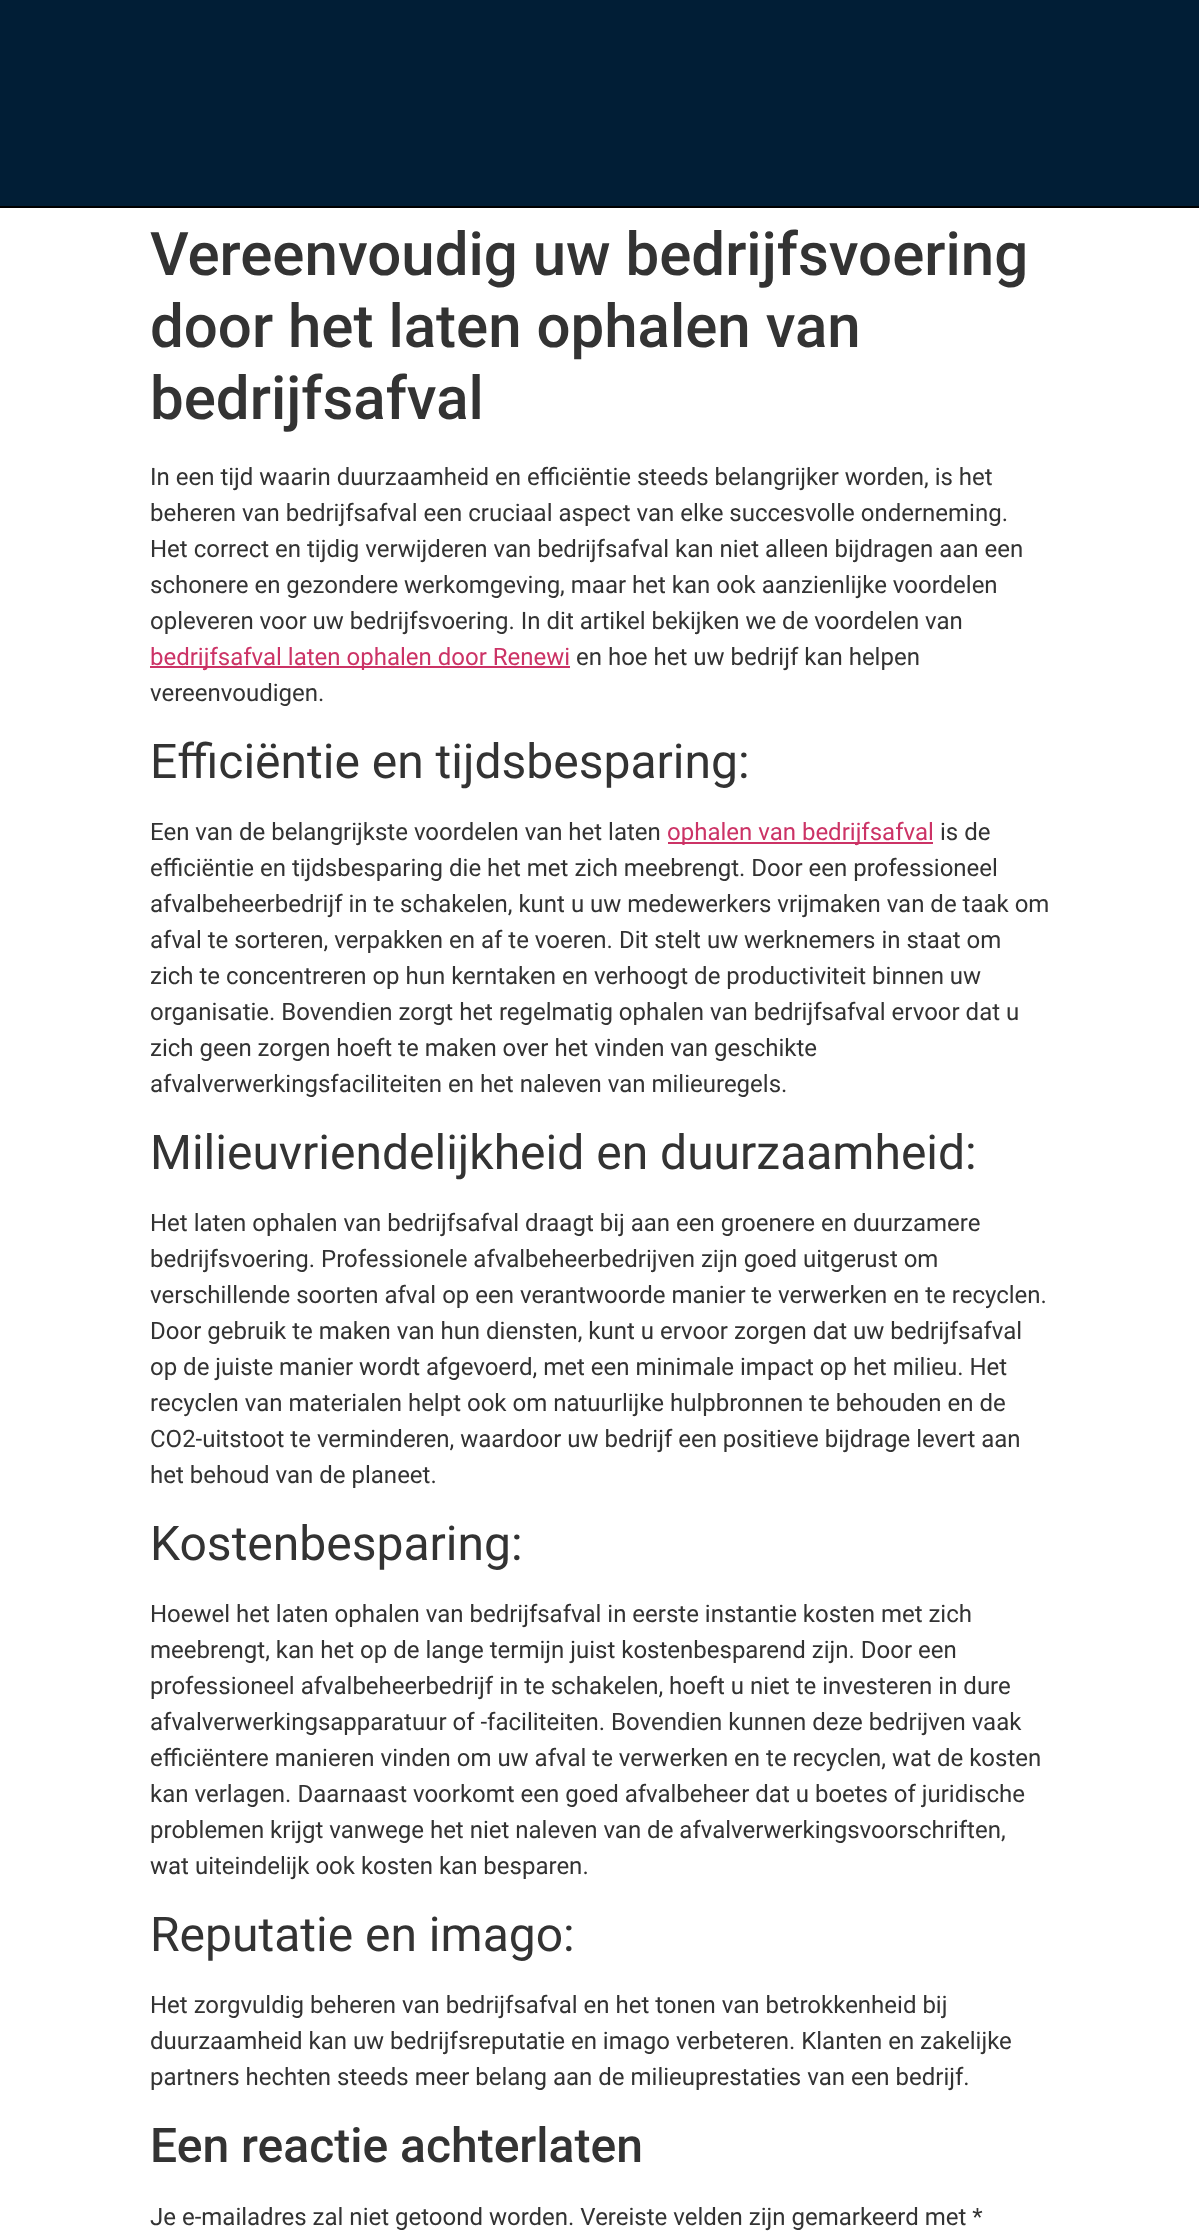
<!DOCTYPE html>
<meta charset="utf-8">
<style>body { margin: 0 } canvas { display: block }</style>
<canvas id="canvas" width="1199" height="2237"></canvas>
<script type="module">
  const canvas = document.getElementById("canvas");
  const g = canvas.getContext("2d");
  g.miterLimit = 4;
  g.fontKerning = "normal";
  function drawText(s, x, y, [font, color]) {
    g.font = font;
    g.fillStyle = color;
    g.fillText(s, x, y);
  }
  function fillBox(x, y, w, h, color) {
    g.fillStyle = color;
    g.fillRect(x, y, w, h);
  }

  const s1 = ["500 60px Roboto", "#333333"];
  const s2 = ["24px Roboto", "#333333"];
  const s3 = ["24px Roboto", "#CC3366"];
  const s4 = ["48px Roboto", "#333333"];
  const s5 = ["500 48px Roboto", "#333333"];

  fillBox(0, 0, 1199, 2237, "#FFFFFF");
  fillBox(0, 0, 1199, 206, "#011E36");
  fillBox(0, 206, 1199, 2, "#000000");
  drawText("Vereenvoudig uw bedrijfsvoering", 150, 275, s1);
  drawText("door het laten ophalen van", 150, 347, s1);
  drawText("bedrijfsafval", 150, 419, s1);
  drawText("In een tijd waarin duurzaamheid en efficiëntie steeds belangrijker worden, is het", 150, 485, s2);
  drawText("beheren van bedrijfsafval een cruciaal aspect van elke succesvolle onderneming.", 150, 521, s2);
  drawText("Het correct en tijdig verwijderen van bedrijfsafval kan niet alleen bijdragen aan een", 150, 557, s2);
  drawText("schonere en gezondere werkomgeving, maar het kan ook aanzienlijke voordelen", 150, 593, s2);
  drawText("opleveren voor uw bedrijfsvoering. In dit artikel bekijken we de voordelen van", 150, 629, s2);
  fillBox(150, 666, 420, 2, "#CC3366");
  drawText("bedrijfsafval laten ophalen door Renewi", 150, 665, s3);
  drawText("en hoe het uw bedrijf kan helpen", 576, 665, s2);
  drawText("vereenvoudigen.", 150, 701, s2);
  drawText("Efficiëntie en tijdsbesparing:", 150, 778, s4);
  drawText("Een van de belangrijkste voordelen van het laten", 150, 840, s2);
  fillBox(668, 842, 265, 2, "#CC3366");
  drawText("ophalen van bedrijfsafval", 667, 840, s3);
  drawText("is de", 940, 840, s2);
  drawText("efficiëntie en tijdsbesparing die het met zich meebrengt. Door een professioneel", 150, 876, s2);
  drawText("afvalbeheerbedrijf in te schakelen, kunt u uw medewerkers vrijmaken van de taak om", 150, 912, s2);
  drawText("afval te sorteren, verpakken en af te voeren. Dit stelt uw werknemers in staat om", 150, 948, s2);
  drawText("zich te concentreren op hun kerntaken en verhoogt de productiviteit binnen uw", 150, 984, s2);
  drawText("organisatie. Bovendien zorgt het regelmatig ophalen van bedrijfsafval ervoor dat u", 150, 1020, s2);
  drawText("zich geen zorgen hoeft te maken over het vinden van geschikte", 150, 1056, s2);
  drawText("afvalverwerkingsfaciliteiten en het naleven van milieuregels.", 150, 1092, s2);
  drawText("Milieuvriendelijkheid en duurzaamheid:", 150, 1169, s4);
  drawText("Het laten ophalen van bedrijfsafval draagt bij aan een groenere en duurzamere", 150, 1231, s2);
  drawText("bedrijfsvoering. Professionele afvalbeheerbedrijven zijn goed uitgerust om", 150, 1267, s2);
  drawText("verschillende soorten afval op een verantwoorde manier te verwerken en te recyclen.", 150, 1303, s2);
  drawText("Door gebruik te maken van hun diensten, kunt u ervoor zorgen dat uw bedrijfsafval", 150, 1339, s2);
  drawText("op de juiste manier wordt afgevoerd, met een minimale impact op het milieu. Het", 150, 1375, s2);
  drawText("recyclen van materialen helpt ook om natuurlijke hulpbronnen te behouden en de", 150, 1411, s2);
  drawText("CO2-uitstoot te verminderen, waardoor uw bedrijf een positieve bijdrage levert aan", 150, 1447, s2);
  drawText("het behoud van de planeet.", 150, 1483, s2);
  drawText("Kostenbesparing:", 150, 1560, s4);
  drawText("Hoewel het laten ophalen van bedrijfsafval in eerste instantie kosten met zich", 150, 1622, s2);
  drawText("meebrengt, kan het op de lange termijn juist kostenbesparend zijn. Door een", 150, 1658, s2);
  drawText("professioneel afvalbeheerbedrijf in te schakelen, hoeft u niet te investeren in dure", 150, 1694, s2);
  drawText("afvalverwerkingsapparatuur of -faciliteiten. Bovendien kunnen deze bedrijven vaak", 150, 1730, s2);
  drawText("efficiëntere manieren vinden om uw afval te verwerken en te recyclen, wat de kosten", 150, 1766, s2);
  drawText("kan verlagen. Daarnaast voorkomt een goed afvalbeheer dat u boetes of juridische", 150, 1802, s2);
  drawText("problemen krijgt vanwege het niet naleven van de afvalverwerkingsvoorschriften,", 150, 1838, s2);
  drawText("wat uiteindelijk ook kosten kan besparen.", 150, 1874, s2);
  drawText("Reputatie en imago:", 150, 1951, s4);
  drawText("Het zorgvuldig beheren van bedrijfsafval en het tonen van betrokkenheid bij", 150, 2013, s2);
  drawText("duurzaamheid kan uw bedrijfsreputatie en imago verbeteren. Klanten en zakelijke", 150, 2049, s2);
  drawText("partners hechten steeds meer belang aan de milieuprestaties van een bedrijf.", 150, 2085, s2);
  drawText("Een reactie achterlaten", 150, 2162, s5);
  drawText("Je e-mailadres zal niet getoond worden. Vereiste velden zijn gemarkeerd met *", 150, 2225, s2);
</script>
